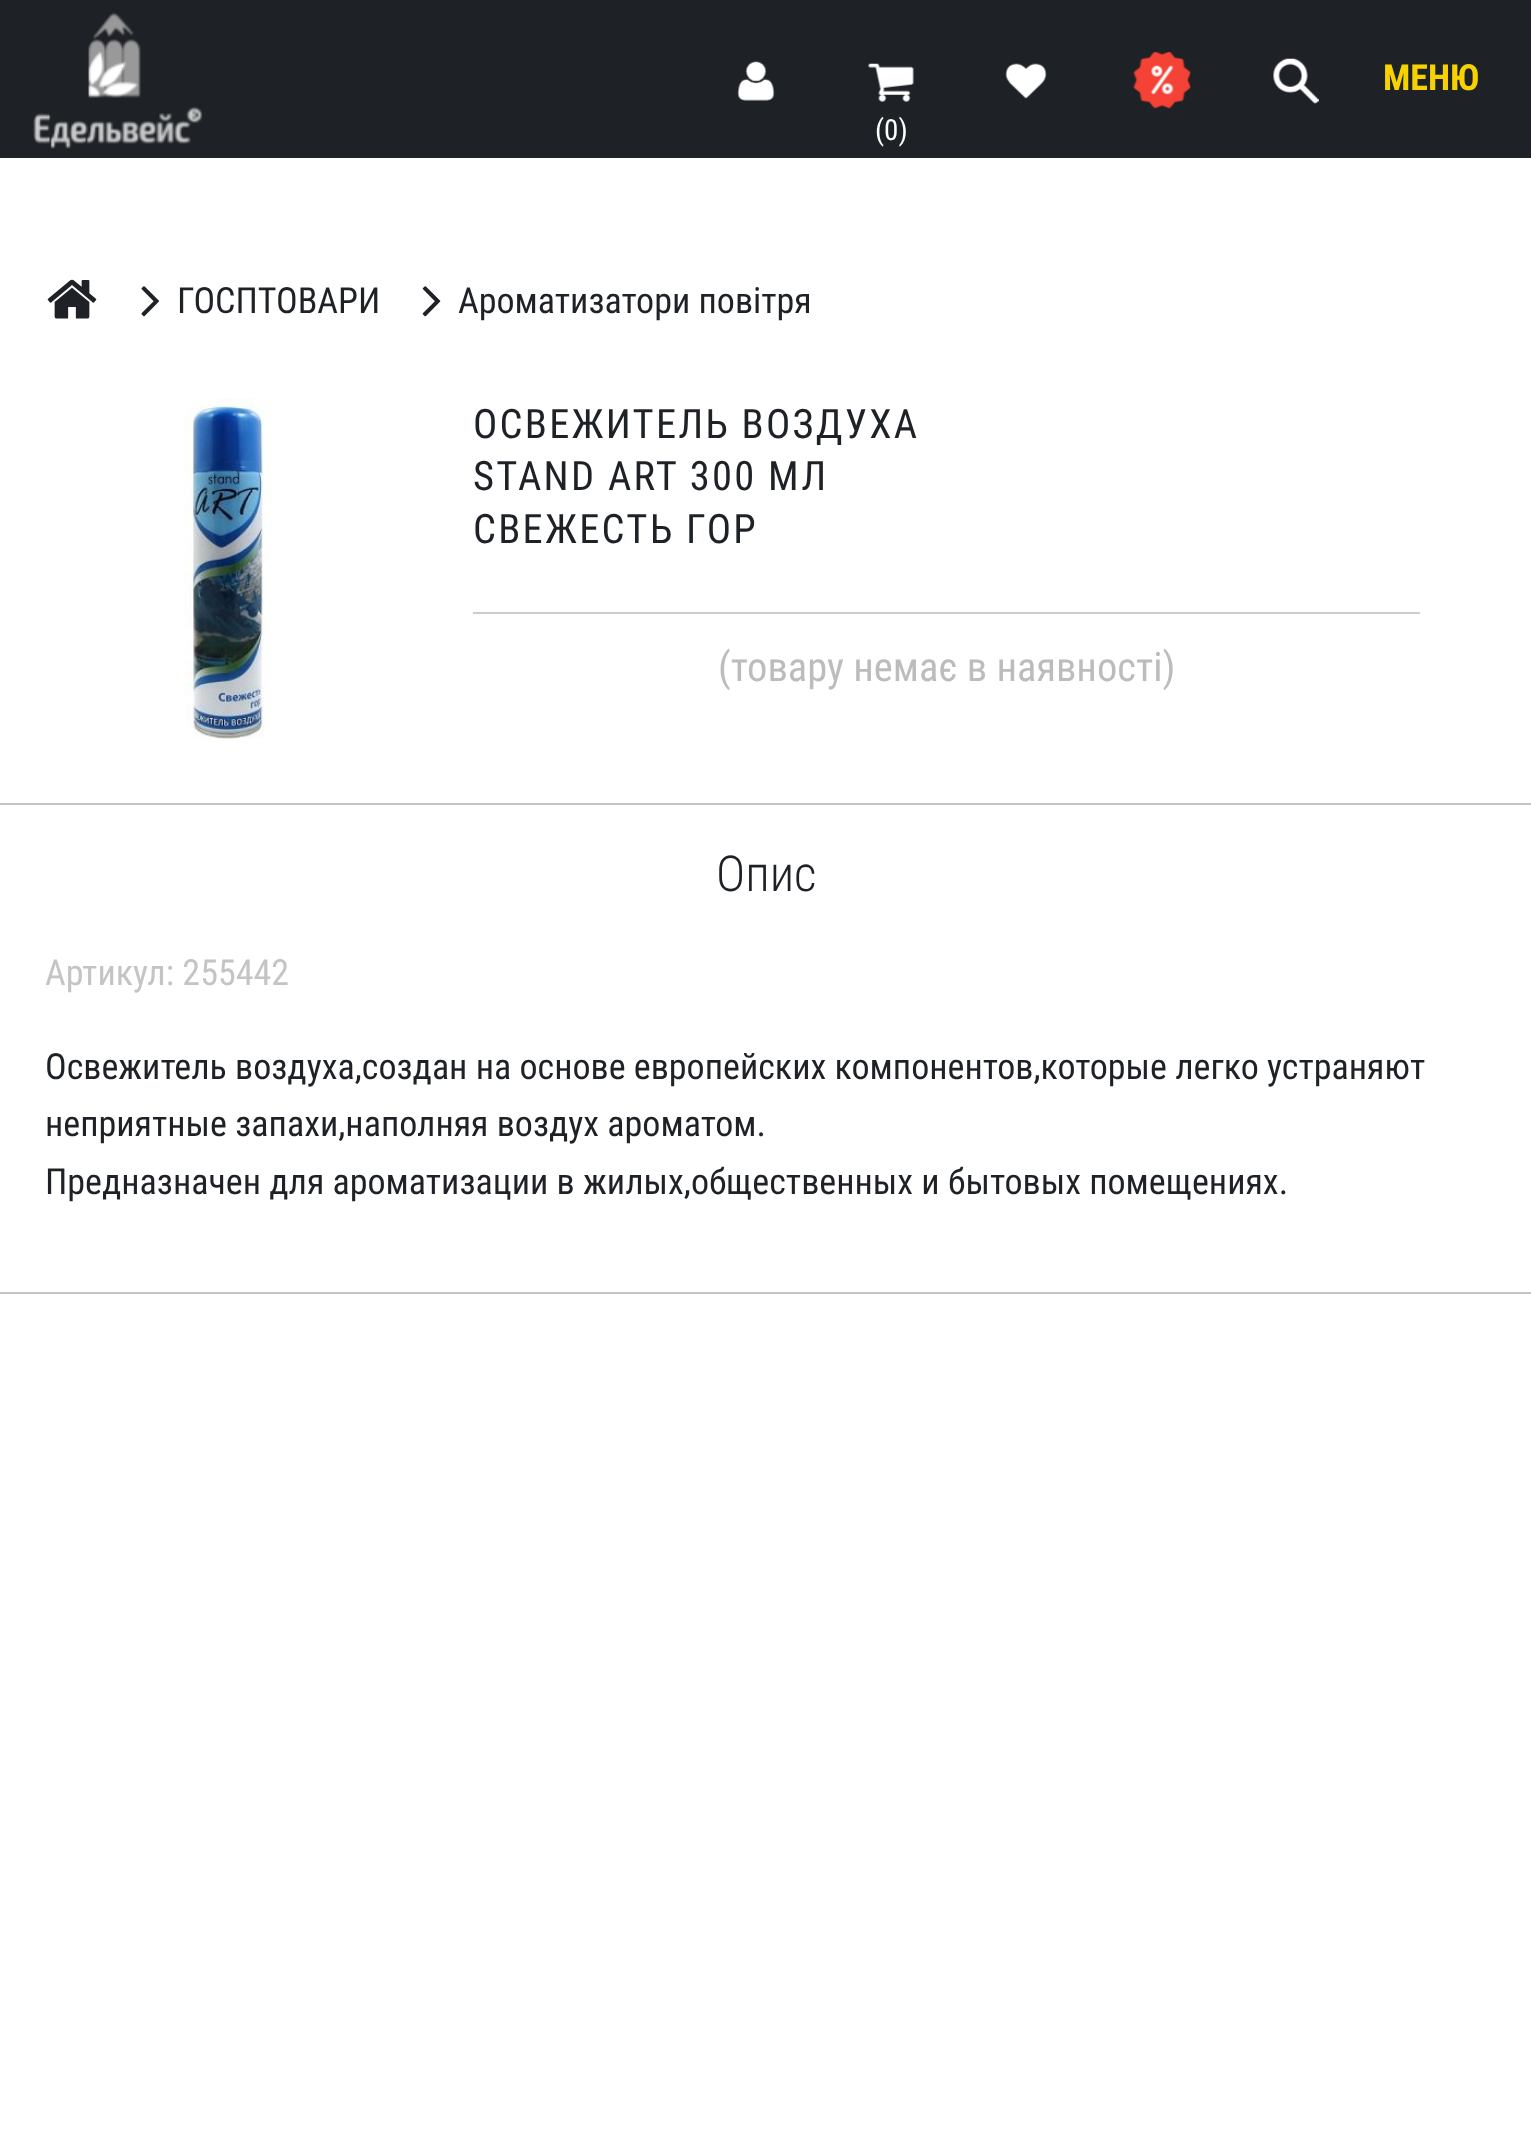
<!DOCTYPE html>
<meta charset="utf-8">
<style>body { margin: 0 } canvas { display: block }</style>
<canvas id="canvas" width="1531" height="2145"></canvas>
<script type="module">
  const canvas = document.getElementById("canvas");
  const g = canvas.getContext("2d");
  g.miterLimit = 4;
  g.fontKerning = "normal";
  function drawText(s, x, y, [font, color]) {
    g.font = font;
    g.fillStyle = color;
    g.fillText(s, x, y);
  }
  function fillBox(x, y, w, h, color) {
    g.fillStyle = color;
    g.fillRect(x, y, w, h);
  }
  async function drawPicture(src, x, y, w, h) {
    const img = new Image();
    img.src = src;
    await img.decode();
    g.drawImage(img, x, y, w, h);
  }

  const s1 = ["bold 36px Roboto Condensed", "#F6D202"];
  const s2 = ["29px Roboto Condensed", "#FFFFFF"];
  const s3 = ["36px Roboto Condensed", "#1E2226"];
  const s4 = ["40.5px Roboto Condensed", "#1E2226"];
  const s5 = ["40.5px Roboto Condensed", "#BCBCBC"];
  const s6 = ["300 49.5px Roboto Condensed", "#1E2226"];
  const s7 = ["36px Roboto Condensed", "#C4C4C5"];

  fillBox(0, 0, 1531, 2145, "#FFFFFF");
  fillBox(0, 0, 1531, 158, "#1E2226");
  await drawPicture("pic1.png", 33, 12, 170, 137);
  await drawPicture("pic2.png", 737, 61, 38, 40);
  await drawPicture("pic3.png", 1005, 63, 42, 36);
  await drawPicture("pic4.png", 1133, 52, 58, 57);
  await drawPicture("pic5.png", 1273, 58, 46, 46);
  drawText("МЕНЮ", 1383, 90, s1);
  await drawPicture("pic6.png", 868, 63, 46, 39);
  drawText("(0)", 875, 140, s2);
  await drawPicture("pic7.png", 47, 279, 50, 40);
  await drawPicture("pic8.png", 141, 286, 18, 31);
  drawText("ГОСПТОВАРИ", 177, 313, s3);
  await drawPicture("pic9.png", 422, 286, 19, 31);
  drawText("Ароматизатори повітря", 458, 313, s3);
  await drawPicture("pic10.png", 184, 398, 88, 344);
  fillBox(473, 612, 947, 2, "#CCCCCC");
  g.letterSpacing = "2.25px";
  drawText("ОСВЕЖИТЕЛЬ ВОЗДУХА", 473, 438, s4);
  drawText("STAND ART 300 МЛ", 473, 490, s4);
  drawText("СВЕЖЕСТЬ ГОР", 473, 543, s4);
  g.letterSpacing = "0px";
  drawText("(товару немає в наявності)", 718, 681, s5);
  fillBox(0, 803, 1531, 2, "#C4C4C5");
  fillBox(0, 1292, 1531, 2, "#C4C4C5");
  drawText("Опис", 716, 891, s6);
  drawText("Артикул: 255442", 45, 985, s7);
  drawText("Освежитель воздуха,создан на основе европейских компонентов,которые легко устраняют", 45, 1079, s3);
  drawText("неприятные запахи,наполняя воздух ароматом.", 45, 1136, s3);
  drawText("Предназначен для ароматизации в жилых,общественных и бытовых помещениях.", 45, 1194, s3);
</script>
